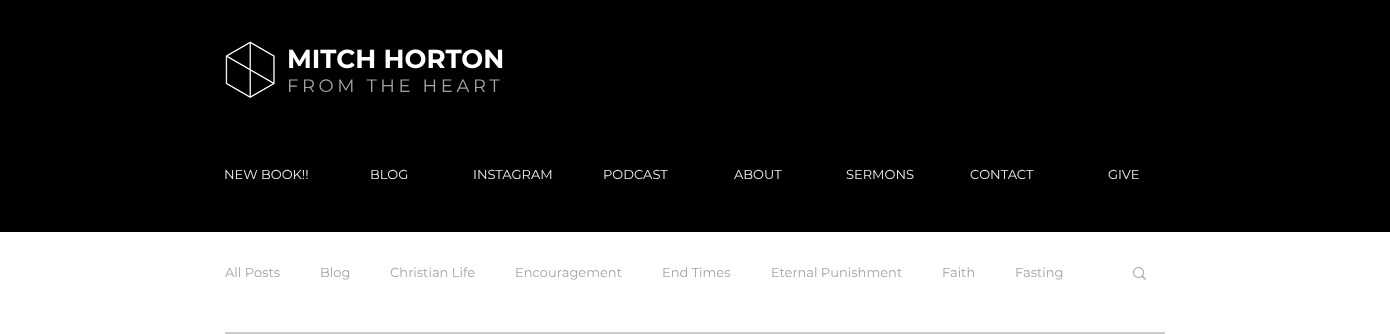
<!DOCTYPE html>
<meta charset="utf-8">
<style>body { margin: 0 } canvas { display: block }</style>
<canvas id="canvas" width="1390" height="334"></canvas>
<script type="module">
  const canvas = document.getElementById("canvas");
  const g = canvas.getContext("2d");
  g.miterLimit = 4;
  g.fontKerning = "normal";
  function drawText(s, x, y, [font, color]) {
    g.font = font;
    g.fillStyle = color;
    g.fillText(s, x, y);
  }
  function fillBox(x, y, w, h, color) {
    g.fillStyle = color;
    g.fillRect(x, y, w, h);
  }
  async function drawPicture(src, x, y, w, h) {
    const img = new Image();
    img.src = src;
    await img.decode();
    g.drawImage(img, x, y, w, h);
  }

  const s1 = ["bold 26px Montserrat", "#FFFFFF"];
  const s2 = ["18px Montserrat", "#A4A4A4"];
  const s3 = ["13px Montserrat", "#EDEDEC"];
  const s4 = ["13px Montserrat", "#A4A4A4"];

  fillBox(0, 0, 1390, 334, "#FFFFFF");
  fillBox(0, 0, 1390, 232, "#000000");
  await drawPicture("pic1.png", 225, 41, 50, 57);
  drawText("MITCH HORTON", 287, 68, s1);
  g.letterSpacing = "3.6px";
  drawText("FROM THE HEART", 287, 92, s2);
  g.letterSpacing = "0px";
  drawText("NEW BOOK!!", 224, 179, s3);
  drawText("BLOG", 370, 179, s3);
  drawText("INSTAGRAM", 473, 179, s3);
  drawText("PODCAST", 603, 179, s3);
  drawText("ABOUT", 734, 179, s3);
  drawText("SERMONS", 846, 179, s3);
  drawText("CONTACT", 970, 179, s3);
  drawText("GIVE", 1108, 179, s3);
  drawText("All Posts", 225, 277, s4);
  drawText("Blog", 320, 277, s4);
  drawText("Christian Life", 390, 277, s4);
  drawText("Encouragement", 515, 277, s4);
  drawText("End Times", 662, 277, s4);
  drawText("Eternal Punishment", 771, 277, s4);
  drawText("Faith", 942, 277, s4);
  drawText("Fasting", 1015, 277, s4);
  await drawPicture("pic2.png", 1133, 267, 13, 13);
  g.strokeStyle = "#CDCDC9";
  g.lineWidth = 2;
  g.strokeRect(226, 333, 938, 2);
</script>
